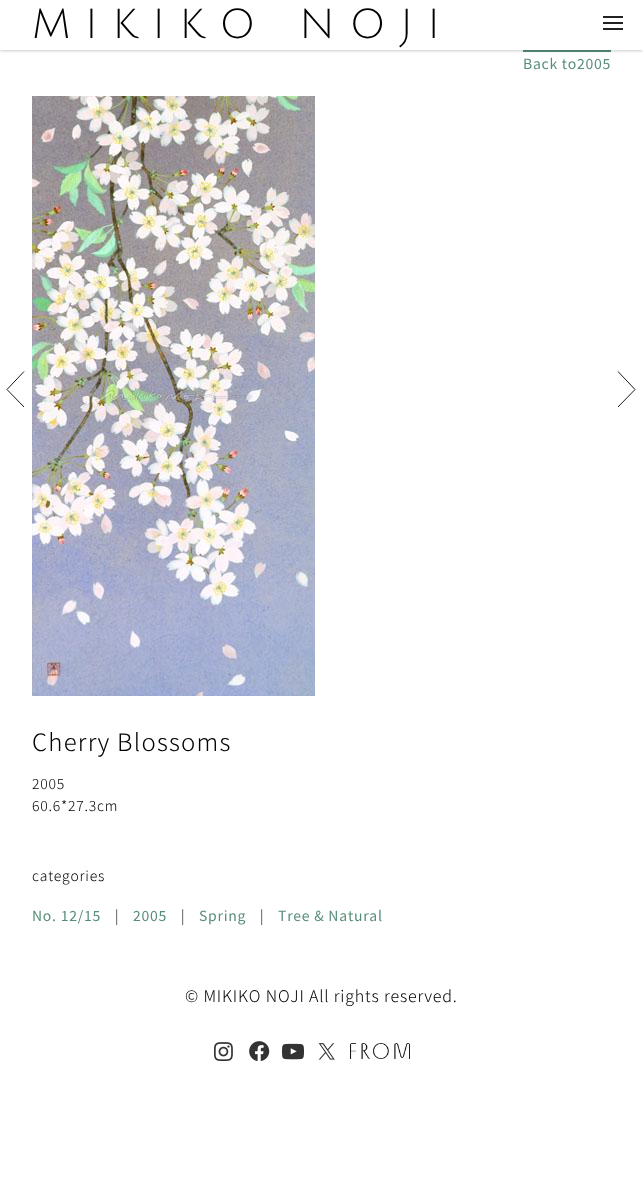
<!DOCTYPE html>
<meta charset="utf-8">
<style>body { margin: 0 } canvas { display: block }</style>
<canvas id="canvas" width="643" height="1182"></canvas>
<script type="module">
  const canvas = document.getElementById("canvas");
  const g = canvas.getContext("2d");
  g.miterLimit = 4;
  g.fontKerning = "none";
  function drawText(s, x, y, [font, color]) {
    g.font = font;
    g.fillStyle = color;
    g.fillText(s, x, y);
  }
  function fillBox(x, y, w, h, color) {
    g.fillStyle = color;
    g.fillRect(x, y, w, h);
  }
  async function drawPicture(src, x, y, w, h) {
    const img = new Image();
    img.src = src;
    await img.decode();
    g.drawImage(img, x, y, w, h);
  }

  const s1 = ["41.1px Julius Sans One", "#000000"];
  const s2 = ["14px Noto Sans JP", "#578E78"];
  const s3 = ["300 24px Noto Sans JP", "#000000"];
  const s4 = ["300 14px Noto Sans JP", "#000000"];
  const s5 = ["300 16.1px Noto Sans JP", "#000000"];

  fillBox(0, 0, 643, 1182, "#FFFFFF");
  fillBox(523, 50, 88, 2, "#578E78");
  g.save();
  g.beginPath();
  g.rect(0, 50, 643, 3);
  g.clip();
  g.fillStyle = "rgba(0, 0, 0, 0.2)";
  g.filter = "blur(1.5px)";
  g.beginPath();
  g.rect(0, 1, 643, 50);
  g.fill();
  g.filter = "none";
  g.restore();
  g.letterSpacing = "14.4px";
  drawText("MIKIKO NOJI", 32, 38, s1);
  fillBox(603, 28, 20, 2, "#222222");
  fillBox(603, 16, 20, 2, "#222222");
  fillBox(603, 22, 20, 2, "#222222");
  g.letterSpacing = "0.75px";
  drawText("Back to", 523, 69, s2);
  drawText("2005", 577, 69, s2);
  g.beginPath();
  g.moveTo(24, 371.5);
  g.lineTo(7, 389.5);
  g.lineTo(24, 407);
  g.strokeStyle = "#231815";
  g.stroke();
  await drawPicture("pic1.png", 32, 96, 283, 600);
  g.beginPath();
  g.moveTo(618, 371.5);
  g.lineTo(635, 389.5);
  g.lineTo(618, 407);
  g.stroke();
  g.letterSpacing = "1.25px";
  drawText("Cherry Blossoms", 32, 751, s3);
  g.letterSpacing = "0.75px";
  drawText("2005", 32, 789, s4);
  drawText("60.6*27.3cm", 32, 811, s4);
  drawText("categories", 32, 881, s4);
  drawText("No. 12/15", 32, 921, s2);
  drawText("|", 115, 921, s4);
  drawText("2005", 133, 921, s2);
  drawText("|", 181, 921, s4);
  drawText("Spring", 199, 921, s2);
  drawText("|", 260, 921, s4);
  drawText("Tree & Natural", 278, 921, s2);
  g.letterSpacing = "0.8px";
  drawText("© MIKIKO NOJI All rights reserved.", 185, 1002, s5);
  await drawPicture("pic2.png", 214, 1042, 19, 19);
  await drawPicture("pic3.png", 249, 1041, 21, 21);
  await drawPicture("pic4.png", 282, 1043, 22, 17);
  await drawPicture("pic5.png", 318, 1043, 17, 17);
  await drawPicture("pic6.png", 350, 1043, 60, 16);
</script>
